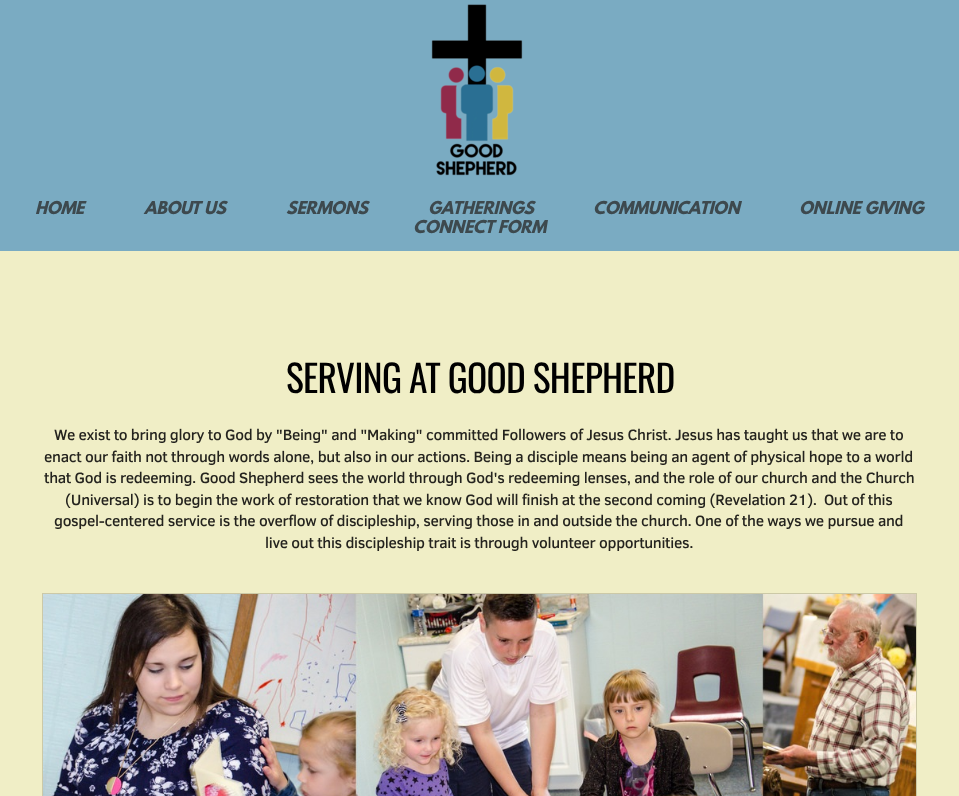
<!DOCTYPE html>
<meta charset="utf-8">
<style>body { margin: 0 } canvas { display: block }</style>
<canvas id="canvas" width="959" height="796"></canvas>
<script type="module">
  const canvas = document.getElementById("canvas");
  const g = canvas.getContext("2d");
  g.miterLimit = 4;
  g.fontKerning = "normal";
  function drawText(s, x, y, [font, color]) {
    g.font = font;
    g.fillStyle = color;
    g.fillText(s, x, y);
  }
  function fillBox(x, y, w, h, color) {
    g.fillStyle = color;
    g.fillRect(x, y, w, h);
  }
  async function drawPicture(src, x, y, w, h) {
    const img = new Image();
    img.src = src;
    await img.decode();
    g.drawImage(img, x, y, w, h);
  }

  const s1 = ["italic bold 15.75px League Spartan", "#3D494E"];
  const s2 = ["37.5px Oswald", "#000000"];
  const s3 = ["500 15.35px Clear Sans", "#24231E"];

  fillBox(0, 0, 959, 796, "#F0EEC6");
  fillBox(0, 0, 959, 251, "#7AABC2");
  await drawPicture("pic1.png", 431, 4, 92, 172);
  g.letterSpacing = "-0.2px";
  drawText("HOME", 35, 214, s1);
  drawText("ABOUT US", 144, 214, s1);
  drawText("SERMONS", 286, 214, s1);
  drawText("GATHERINGS", 428, 214, s1);
  drawText("COMMUNICATION", 593, 214, s1);
  drawText("ONLINE GIVING", 799, 214, s1);
  drawText("CONNECT FORM", 413, 233, s1);
  g.letterSpacing = "-0.75px";
  drawText("SERVING AT GOOD SHEPHERD", 286, 393, s2);
  g.letterSpacing = "-0.31px";
  drawText("We exist to bring glory to God by \"Being\" and \"Making\" committed Followers of Jesus Christ. Jesus has taught us that we are to", 54, 440, s3);
  drawText("enact our faith not through words alone, but also in our actions. Being a disciple means being an agent of physical hope to a world", 44, 462, s3);
  drawText("that God is redeeming. Good Shepherd sees the world through God's redeeming lenses, and the role of our church and the Church", 44, 483, s3);
  drawText("(Universal) is to begin the work of restoration that we know God will finish at the second coming (Revelation 21).  Out of this", 65, 505, s3);
  drawText("gospel-centered service is the overflow of discipleship, serving those in and outside the church. One of the ways we pursue and", 54, 526, s3);
  drawText("live out this discipleship trait is through volunteer opportunities.", 265, 548, s3);
  g.strokeStyle = "#CCC9A7";
  g.strokeRect(42.5, 593.5, 874, 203);
  await drawPicture("pic2.png", 43, 594, 873, 202);
</script>
